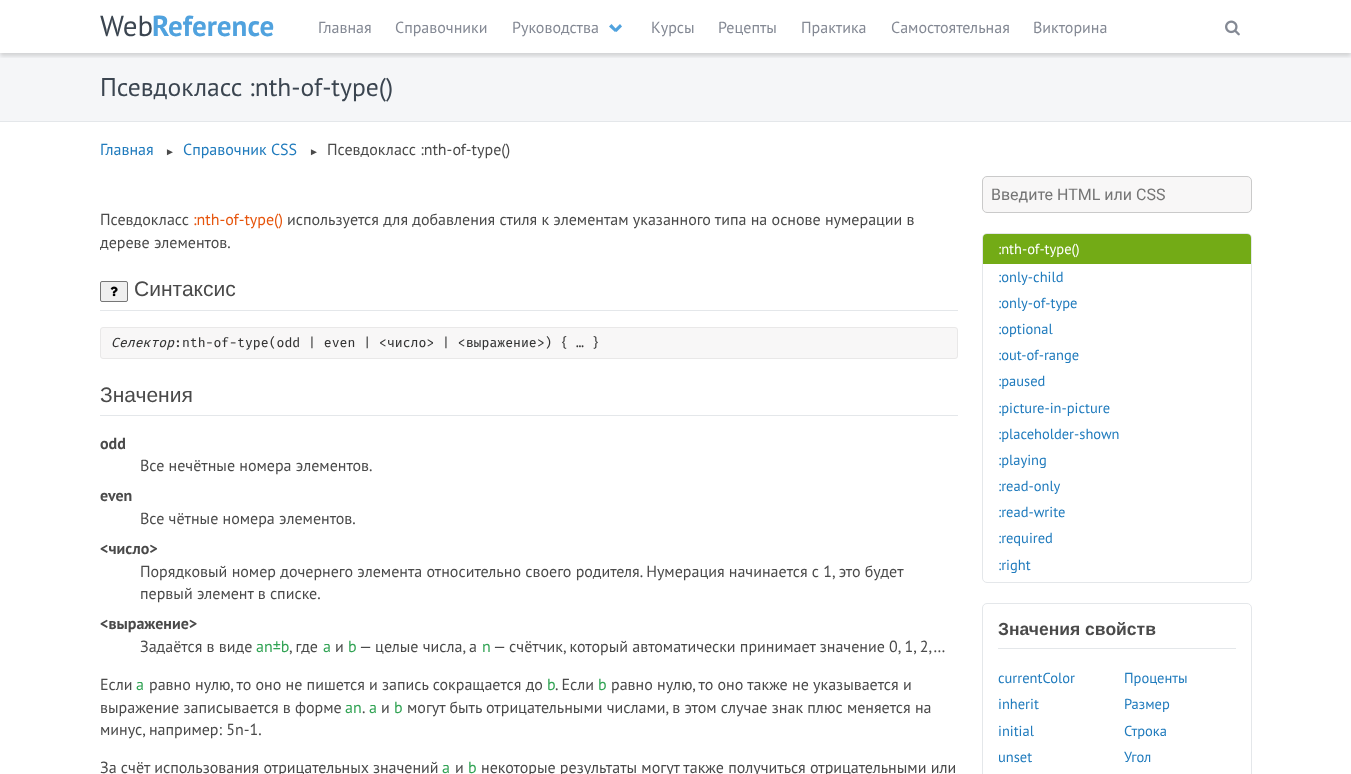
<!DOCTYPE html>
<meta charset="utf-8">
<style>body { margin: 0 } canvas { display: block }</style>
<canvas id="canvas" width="1351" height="774"></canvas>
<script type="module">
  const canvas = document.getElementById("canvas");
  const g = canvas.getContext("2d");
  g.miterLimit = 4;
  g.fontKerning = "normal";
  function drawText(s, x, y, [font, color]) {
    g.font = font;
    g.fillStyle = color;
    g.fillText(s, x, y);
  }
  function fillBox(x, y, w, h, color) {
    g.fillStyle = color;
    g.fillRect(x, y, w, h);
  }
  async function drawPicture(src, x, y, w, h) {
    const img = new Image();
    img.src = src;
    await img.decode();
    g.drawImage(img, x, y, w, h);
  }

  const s1 = ["29px PT Sans", "#3B4550"];
  const s2 = ["bold 29px PT Sans", "#50A2DE"];
  const s3 = ["16px PT Sans", "#848994"];
  const s4 = ["25.6px PT Sans", "#3B4550"];
  const s5 = ["16px PT Sans", "#207BBD"];
  const s6 = ["10px Liberation Sans", "#4A4A4A"];
  const s7 = ["16px PT Sans", "#4A4A4A"];
  const s8 = ["16px PT Sans", "#E6550D"];
  const s9 = ["21px Liberation Sans", "#4A4A4A"];
  const s10 = ["italic 13.15px Fira Mono", "#333333"];
  const s11 = ["13.15px Fira Mono", "#333333"];
  const s12 = ["bold 16px PT Sans", "#4A4A4A"];
  const s13 = ["16px PT Sans", "#31A354"];
  const s14 = ["16px Roboto", "#757575"];
  const s15 = ["14.5px PT Sans", "#FFFFFF"];
  const s16 = ["14.5px PT Sans", "#207BBD"];
  const s17 = ["bold 17.5px Liberation Sans", "#4A4A4A"];

  fillBox(0, 0, 1351, 774, "#FFFFFF");
  fillBox(0, 53, 1351, 68, "#F5F6F8");
  g.save();
  g.beginPath();
  g.rect(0, 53, 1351, 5);
  g.clip();
  g.fillStyle = "rgba(0, 0, 0, 0.15)";
  g.filter = "blur(2px)";
  g.beginPath();
  g.rect(0, 3, 1351, 53);
  g.fill();
  g.filter = "none";
  g.restore();
  drawText("Web", 100, 36, s1);
  drawText("Reference", 152, 36, s2);
  drawText("Главная", 318, 33, s3);
  drawText("Справочники", 395, 33, s3);
  drawText("Руководства", 512, 33, s3);
  g.fillStyle = "#50A2DE";
  g.beginPath();
  g.moveTo(614, 30);
  g.lineTo(620, 24);
  g.lineTo(622, 26.5);
  g.lineTo(616.5, 32);
  g.closePath();
  g.fill();
  g.beginPath();
  g.moveTo(609, 26.5);
  g.lineTo(611.5, 24);
  g.lineTo(617, 30);
  g.lineTo(615, 32);
  g.closePath();
  g.fill();
  drawText("Курсы", 651, 33, s3);
  drawText("Рецепты", 718, 33, s3);
  drawText("Практика", 801, 33, s3);
  drawText("Самостоятельная", 891, 33, s3);
  drawText("Викторина", 1033, 33, s3);
  await drawPicture("pic1.png", 1225, 20, 15, 16);
  fillBox(0, 121, 1351, 1, "#E4E7EA");
  drawText("Псевдокласс :nth-of-type()", 100, 96, s4);
  drawText("Главная", 100, 155, s5);
  drawText("►", 165, 155, s6);
  drawText("Справочник CSS", 183, 155, s5);
  drawText("►", 309, 155, s6);
  drawText("Псевдокласс :nth-of-type()", 327, 155, s7);
  drawText("Псевдокласс", 100, 225, s7);
  drawText(":nth-of-type()", 193, 225, s8);
  drawText("используется для добавления стиля к элементам указанного типа на основе нумерации в", 287, 225, s7);
  drawText("дереве элементов.", 100, 248, s7);
  fillBox(100, 310, 858, 1, "#E4E7EA");
  g.fillStyle = "#EFEFEF";
  g.beginPath();
  g.roundRect(100.5, 281.5, 27, 20, 1.5);
  g.fill();
  g.strokeStyle = "#767676";
  g.stroke();
  await drawPicture("pic2.png", 110, 286, 8, 11);
  drawText("Синтаксис", 134, 296, s9);
  g.fillStyle = "#F8F7F7";
  g.beginPath();
  g.roundRect(100.5, 327.5, 857, 31, 2.5);
  g.fill();
  g.strokeStyle = "#E9E8E8";
  g.stroke();
  drawText("Селектор", 111, 347, s10);
  drawText(":nth-of-type(odd | even | <число> | <выражение>) { … }", 174, 347, s11);
  fillBox(100, 415, 858, 1, "#E4E7EA");
  drawText("Значения", 100, 402, s9);
  drawText("odd", 100, 449, s12);
  drawText("Все нечётные номера элементов.", 140, 471, s7);
  drawText("even", 100, 501, s12);
  drawText("Все чётные номера элементов.", 140, 524, s7);
  drawText("<число>", 100, 554, s12);
  drawText("Порядковый номер дочернего элемента относительно своего родителя. Нумерация начинается с 1, это будет", 140, 577, s7);
  drawText("первый элемент в списке.", 140, 599, s7);
  drawText("<выражение>", 100, 629, s12);
  drawText("Задаётся в виде", 140, 652, s7);
  drawText("an±b", 256, 652, s13);
  drawText(", где", 289, 652, s7);
  drawText("a", 323, 652, s13);
  drawText("и", 335, 652, s7);
  drawText("b", 348, 652, s13);
  drawText("— целые числа, а", 359, 652, s7);
  drawText("n", 482, 652, s13);
  drawText("— счётчик, который автоматически принимает значение 0, 1, 2,…", 493, 652, s7);
  drawText("Если", 100, 690, s7);
  drawText("a", 136, 690, s13);
  drawText("равно нулю, то оно не пишется и запись сокращается до", 149, 690, s7);
  drawText("b", 547, 690, s13);
  drawText(". Если", 555, 690, s7);
  drawText("b", 598, 690, s13);
  drawText("равно нулю, то оно также не указывается и", 611, 690, s7);
  drawText("выражение записывается в форме", 100, 713, s7);
  drawText("an", 345, 713, s13);
  drawText(".", 362, 713, s7);
  drawText("a", 369, 713, s13);
  drawText("и", 381, 713, s7);
  drawText("b", 394, 713, s13);
  drawText("могут быть отрицательными числами, в этом случае знак плюс меняется на", 407, 713, s7);
  drawText("минус, например: 5n-1.", 100, 735, s7);
  drawText("За счёт использования отрицательных значений", 100, 773, s7);
  drawText("a", 442, 773, s13);
  drawText("и", 455, 773, s7);
  drawText("b", 468, 773, s13);
  drawText("некоторые результаты могут также получиться отрицательными или", 481, 773, s7);
  g.fillStyle = "#F8F7F7";
  g.beginPath();
  g.roundRect(982.5, 176.5, 269, 36, 4.5);
  g.fill();
  g.strokeStyle = "#CACACA";
  g.stroke();
  drawText("Введите HTML или CSS", 991, 200, s14);
  g.beginPath();
  g.roundRect(982.5, 233.5, 269, 349, 4.5);
  g.strokeStyle = "#E4E7EA";
  g.stroke();
  g.fillStyle = "#73AB16";
  g.beginPath();
  g.roundRect(983, 234, 268, 30, [4, 4, 0, 0]);
  g.fill();
  drawText(":nth-of-type()", 998, 254, s15);
  drawText(":only-child", 998, 282, s16);
  drawText(":only-of-type", 998, 308, s16);
  drawText(":optional", 998, 334, s16);
  drawText(":out-of-range", 998, 360, s16);
  drawText(":paused", 998, 386, s16);
  drawText(":picture-in-picture", 998, 413, s16);
  drawText(":placeholder-shown", 998, 439, s16);
  drawText(":playing", 998, 465, s16);
  drawText(":read-only", 998, 491, s16);
  drawText(":read-write", 998, 517, s16);
  drawText(":required", 998, 543, s16);
  drawText(":right", 998, 570, s16);
  g.beginPath();
  g.roundRect(982.5, 603.5, 269, 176, 4.5);
  g.stroke();
  fillBox(998, 648, 238, 1, "#E4E7EA");
  drawText("Значения свойств", 998, 635, s17);
  drawText("currentColor", 998, 683, s16);
  drawText("Проценты", 1124, 683, s16);
  drawText("inherit", 998, 709, s16);
  drawText("Размер", 1124, 709, s16);
  drawText("initial", 998, 736, s16);
  drawText("Строка", 1124, 736, s16);
  drawText("unset", 998, 762, s16);
  drawText("Угол", 1124, 762, s16);
</script>
